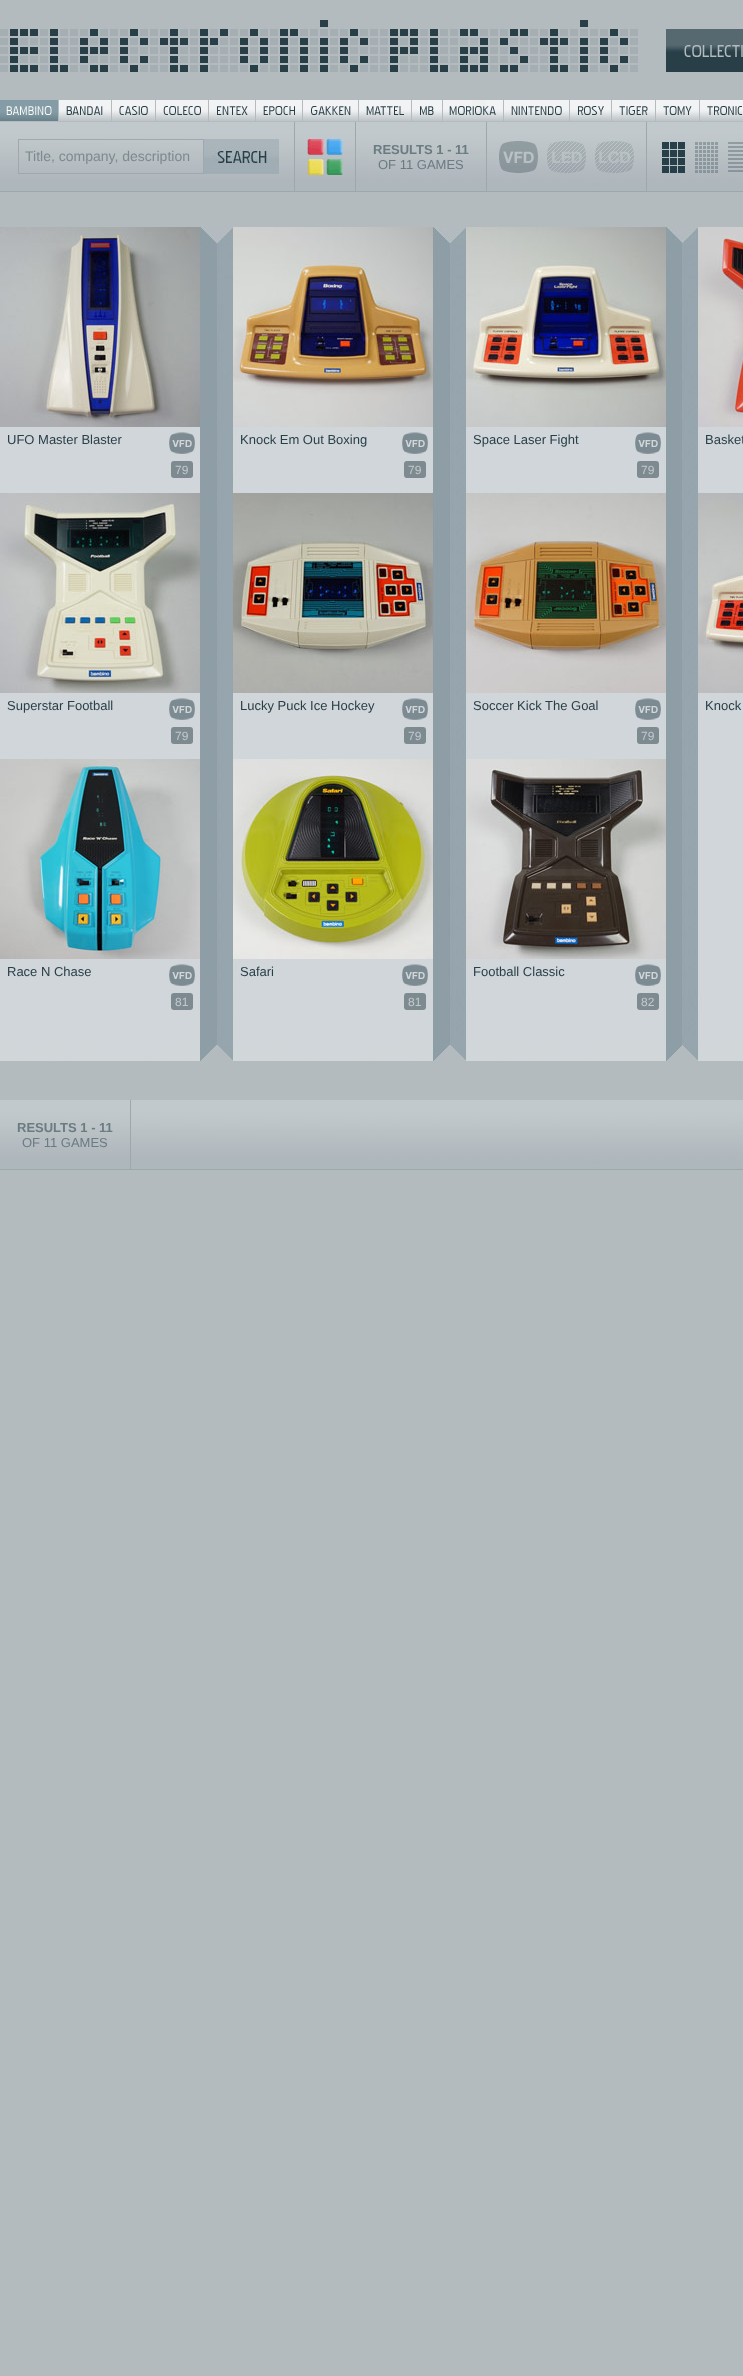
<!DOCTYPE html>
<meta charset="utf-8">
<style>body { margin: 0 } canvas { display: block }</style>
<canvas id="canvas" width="743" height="2376"></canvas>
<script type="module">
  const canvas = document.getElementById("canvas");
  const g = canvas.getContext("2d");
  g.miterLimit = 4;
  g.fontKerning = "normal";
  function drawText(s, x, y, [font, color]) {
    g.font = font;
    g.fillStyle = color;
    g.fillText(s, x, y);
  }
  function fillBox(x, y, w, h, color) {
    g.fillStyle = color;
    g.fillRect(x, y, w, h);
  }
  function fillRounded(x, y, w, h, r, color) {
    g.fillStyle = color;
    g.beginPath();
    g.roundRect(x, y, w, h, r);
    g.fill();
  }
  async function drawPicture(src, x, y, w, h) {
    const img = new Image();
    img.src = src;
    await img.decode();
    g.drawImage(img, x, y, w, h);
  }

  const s1 = ["14px Liberation Sans", "#7C8A90"];
  const s2 = ["bold 13px Liberation Sans", "#6B7B82"];
  const s3 = ["13px Liberation Sans", "#6B7B82"];
  const s4 = ["13px Liberation Sans", "#283F48"];
  const s5 = ["12px Liberation Sans", "#C2C9CD"];

  fillBox(0, 0, 743, 2376, "#B3BBBF");
  await drawPicture("pic1.png", 0, 20, 638, 52);
  await drawPicture("pic2.png", 666, 29, 77, 43);
  await drawPicture("pic3.png", 58, 100, 685, 21);
  await drawPicture("pic4.png", 0, 100, 58, 21);
  await drawPicture("pic5.png", 0, 122, 743, 69);
  fillBox(0, 191, 743, 1, "#9DA8AD");
  fillBox(294, 122, 1, 69, "#9DA8AD");
  g.strokeStyle = "#9EA8AD";
  g.strokeRect(18.5, 139.5, 185, 34);
  drawText("Title, company, description", 25, 161, s1);
  await drawPicture("pic6.png", 204, 139, 75, 35);
  fillBox(355, 122, 1, 69, "#9DA8AD");
  await drawPicture("pic7.png", 307, 139, 36, 36);
  fillBox(486, 122, 1, 70, "#9DA8AD");
  drawText("RESULTS 1 - 11", 373, 154, s2);
  drawText("OF 11 GAMES", 378, 169, s3);
  fillBox(646, 122, 1, 70, "#9DA8AD");
  await drawPicture("pic8.png", 499, 141, 39, 32);
  await drawPicture("pic9.png", 547, 141, 39, 32);
  await drawPicture("pic10.png", 595, 141, 39, 32);
  await drawPicture("pic11.png", 662, 142, 23, 31);
  await drawPicture("pic12.png", 695, 142, 23, 31);
  await drawPicture("pic13.png", 728, 142, 15, 30);
  await drawPicture("pic14.png", 0, 227, 743, 816);
  await drawPicture("pic15.png", 0, 227, 200, 200);
  drawText("UFO Master Blaster", 7, 444, s4);
  await drawPicture("pic16.png", 169, 432, 26, 22);
  fillRounded(171, 461, 22, 17, 3, "#7D8B91");
  drawText("79", 175, 474, s5);
  await drawPicture("pic17.png", 233, 227, 200, 200);
  drawText("Knock Em Out Boxing", 240, 444, s4);
  await drawPicture("pic16.png", 402, 432, 26, 22);
  fillRounded(404, 461, 22, 17, 3, "#7D8B91");
  drawText("79", 408, 474, s5);
  await drawPicture("pic18.png", 466, 227, 200, 200);
  drawText("Space Laser Fight", 473, 444, s4);
  await drawPicture("pic16.png", 635, 432, 26, 22);
  fillRounded(637, 461, 22, 17, 3, "#7D8B91");
  drawText("79", 641, 474, s5);
  await drawPicture("pic19.png", 698, 227, 45, 200);
  drawText("Basket", 705, 444, s4);
  await drawPicture("pic20.png", 0, 493, 200, 200);
  drawText("Superstar Football", 7, 710, s4);
  await drawPicture("pic16.png", 169, 698, 26, 22);
  fillRounded(171, 727, 22, 17, 3, "#7D8B91");
  drawText("79", 175, 740, s5);
  await drawPicture("pic21.png", 233, 493, 200, 200);
  drawText("Lucky Puck Ice Hockey", 240, 710, s4);
  await drawPicture("pic16.png", 402, 698, 26, 22);
  fillRounded(404, 727, 22, 17, 3, "#7D8B91");
  drawText("79", 408, 740, s5);
  await drawPicture("pic22.png", 466, 493, 200, 200);
  drawText("Soccer Kick The Goal", 473, 710, s4);
  await drawPicture("pic16.png", 635, 698, 26, 22);
  fillRounded(637, 727, 22, 17, 3, "#7D8B91");
  drawText("79", 641, 740, s5);
  await drawPicture("pic23.png", 698, 493, 45, 200);
  drawText("Knock", 705, 710, s4);
  await drawPicture("pic24.png", 0, 759, 200, 200);
  drawText("Race N Chase", 7, 976, s4);
  await drawPicture("pic16.png", 169, 964, 26, 22);
  fillRounded(171, 993, 22, 17, 3, "#7D8B91");
  drawText("81", 175, 1006, s5);
  await drawPicture("pic25.png", 233, 759, 200, 200);
  drawText("Safari", 240, 976, s4);
  await drawPicture("pic16.png", 402, 964, 26, 22);
  fillRounded(404, 993, 22, 17, 3, "#7D8B91");
  drawText("81", 408, 1006, s5);
  await drawPicture("pic26.png", 466, 759, 200, 200);
  drawText("Football Classic", 473, 976, s4);
  await drawPicture("pic16.png", 635, 964, 26, 22);
  fillRounded(637, 993, 22, 17, 3, "#7D8B91");
  drawText("82", 641, 1006, s5);
  await drawPicture("pic27.png", 0, 1043, 743, 18);
  await drawPicture("pic5.png", 0, 1100, 743, 69);
  fillBox(0, 1169, 743, 1, "#9DA8AD");
  fillBox(130, 1100, 1, 70, "#9DA8AD");
  drawText("RESULTS 1 - 11", 17, 1132, s2);
  drawText("OF 11 GAMES", 22, 1147, s3);
</script>
